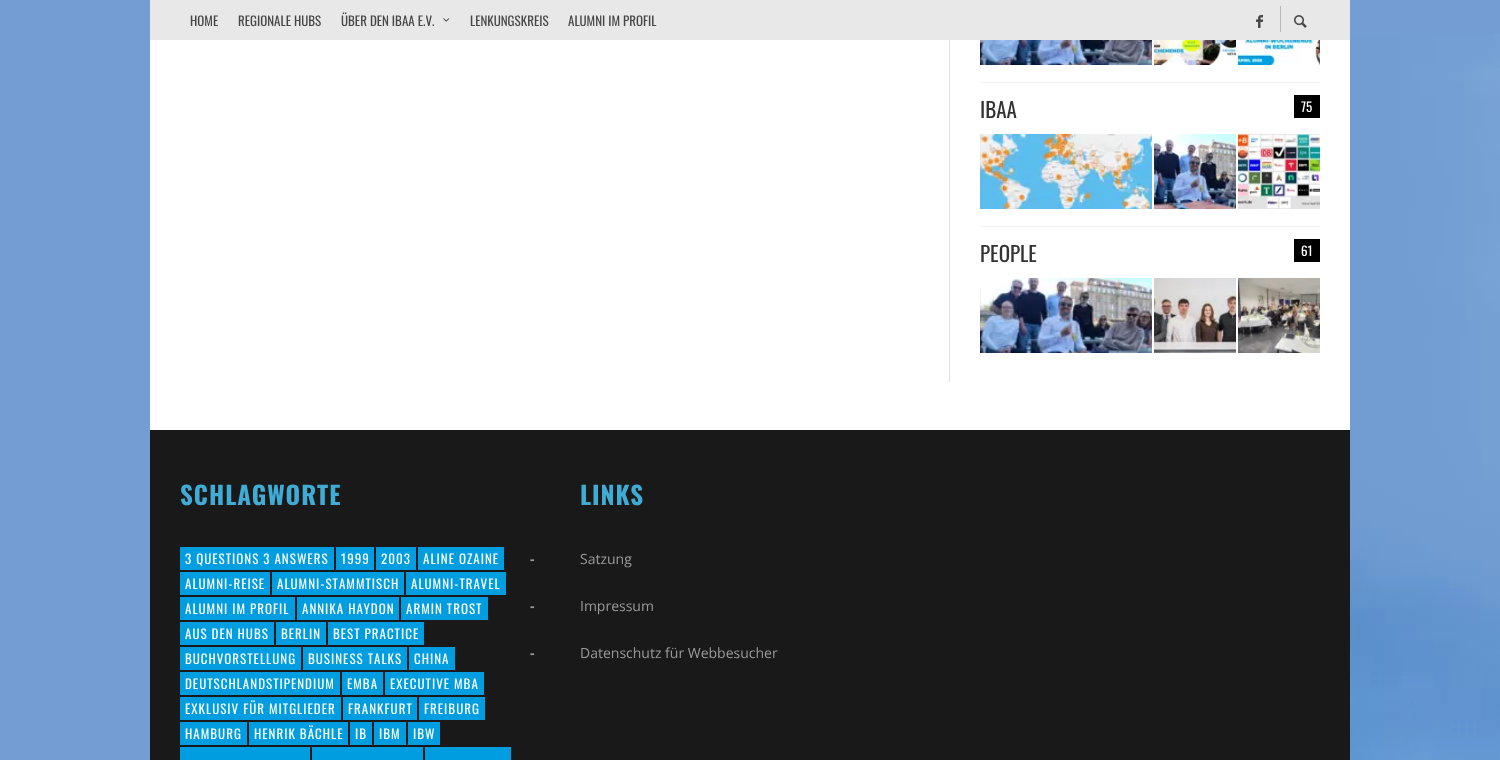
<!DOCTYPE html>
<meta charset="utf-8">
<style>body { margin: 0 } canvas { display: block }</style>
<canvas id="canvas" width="1500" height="760"></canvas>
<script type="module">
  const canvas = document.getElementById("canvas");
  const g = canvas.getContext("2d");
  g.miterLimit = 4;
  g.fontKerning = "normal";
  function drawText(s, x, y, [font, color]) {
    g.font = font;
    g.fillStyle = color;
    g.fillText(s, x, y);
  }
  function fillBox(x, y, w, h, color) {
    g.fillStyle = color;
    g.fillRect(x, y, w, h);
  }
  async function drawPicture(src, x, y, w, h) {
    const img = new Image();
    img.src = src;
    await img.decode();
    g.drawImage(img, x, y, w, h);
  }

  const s1 = ["13px Oswald", "#474747"];
  const s2 = ["21px Oswald", "#333333"];
  const s3 = ["13px Oswald", "#FFFFFF"];
  const s4 = ["bold 25px Oswald", "#3FACD6"];
  const s5 = ["bold 14px Open Sans", "#9A9A9A"];
  const s6 = ["14px Open Sans", "#9A9A9A"];

  fillBox(0, 0, 1500, 760, "#749DD3");
  await drawPicture("pic1.png", 1350, 34, 150, 726);
  fillBox(150, 40, 1200, 390, "#FFFFFF");
  fillBox(150, 0, 1200, 40, "#E8E8E8");
  drawText("HOME", 190, 26, s1);
  drawText("REGIONALE HUBS", 238, 26, s1);
  drawText("ÜBER DEN IBAA E.V.", 341, 26, s1);
  await drawPicture("pic2.png", 443, 18, 7, 4);
  drawText("LENKUNGSKREIS", 470, 26, s1);
  drawText("ALUMNI IM PROFIL", 568, 26, s1);
  await drawPicture("pic3.png", 1256, 14, 7, 14);
  fillBox(1280, 6, 1, 26, "#B8B8B8");
  await drawPicture("pic4.png", 1294, 15, 13, 13);
  fillBox(949, 40, 1, 342, "#E1E1E1");
  await drawPicture("pic5.png", 980, 40, 172, 25);
  await drawPicture("pic6.png", 1154, 40, 82, 25);
  await drawPicture("pic7.png", 1238, 40, 82, 25);
  fillBox(980, 82, 340, 1, "#F2F2F2");
  drawText("IBAA", 980, 118, s2);
  fillBox(1294, 95, 26, 23, "#000000");
  drawText("75", 1301, 112, s3);
  await drawPicture("pic8.png", 980, 134, 172, 75);
  await drawPicture("pic9.png", 1154, 134, 82, 75);
  await drawPicture("pic10.png", 1238, 134, 82, 75);
  fillBox(980, 226, 340, 1, "#F2F2F2");
  drawText("PEOPLE", 980, 262, s2);
  fillBox(1294, 239, 26, 23, "#000000");
  drawText("61", 1301, 256, s3);
  await drawPicture("pic11.png", 980, 278, 172, 75);
  await drawPicture("pic12.png", 1154, 278, 82, 75);
  await drawPicture("pic13.png", 1238, 278, 82, 75);
  fillBox(150, 430, 1200, 330, "#191919");
  g.letterSpacing = "1px";
  drawText("SCHLAGWORTE", 180, 505, s4);
  fillBox(180, 547, 154, 23, "#009EE0");
  drawText("3 QUESTIONS 3 ANSWERS", 185, 564, s3);
  fillBox(336, 547, 38, 23, "#009EE0");
  drawText("1999", 341, 564, s3);
  fillBox(376, 547, 40, 23, "#009EE0");
  drawText("2003", 381, 564, s3);
  fillBox(418, 547, 86, 23, "#009EE0");
  drawText("ALINE OZAINE", 423, 564, s3);
  fillBox(180, 572, 90, 23, "#009EE0");
  drawText("ALUMNI-REISE", 185, 589, s3);
  fillBox(272, 572, 132, 23, "#009EE0");
  drawText("ALUMNI-STAMMTISCH", 277, 589, s3);
  fillBox(406, 572, 100, 23, "#009EE0");
  drawText("ALUMNI-TRAVEL", 411, 589, s3);
  fillBox(180, 597, 115, 23, "#009EE0");
  drawText("ALUMNI IM PROFIL", 185, 614, s3);
  fillBox(297, 597, 102, 23, "#009EE0");
  drawText("ANNIKA HAYDON", 302, 614, s3);
  fillBox(401, 597, 87, 23, "#009EE0");
  drawText("ARMIN TROST", 406, 614, s3);
  fillBox(180, 622, 94, 23, "#009EE0");
  drawText("AUS DEN HUBS", 185, 639, s3);
  fillBox(276, 622, 50, 23, "#009EE0");
  drawText("BERLIN", 281, 639, s3);
  fillBox(328, 622, 96, 23, "#009EE0");
  drawText("BEST PRACTICE", 333, 639, s3);
  fillBox(180, 647, 121, 23, "#009EE0");
  drawText("BUCHVORSTELLUNG", 185, 664, s3);
  fillBox(303, 647, 104, 23, "#009EE0");
  drawText("BUSINESS TALKS", 308, 664, s3);
  fillBox(409, 647, 46, 23, "#009EE0");
  drawText("CHINA", 414, 664, s3);
  fillBox(180, 672, 160, 23, "#009EE0");
  drawText("DEUTSCHLANDSTIPENDIUM", 185, 689, s3);
  fillBox(342, 672, 41, 23, "#009EE0");
  drawText("EMBA", 347, 689, s3);
  fillBox(385, 672, 99, 23, "#009EE0");
  drawText("EXECUTIVE MBA", 390, 689, s3);
  fillBox(180, 697, 161, 23, "#009EE0");
  drawText("EXKLUSIV FÜR MITGLIEDER", 185, 714, s3);
  fillBox(343, 697, 74, 23, "#009EE0");
  drawText("FRANKFURT", 348, 714, s3);
  fillBox(419, 697, 66, 23, "#009EE0");
  drawText("FREIBURG", 424, 714, s3);
  fillBox(180, 722, 67, 23, "#009EE0");
  drawText("HAMBURG", 185, 739, s3);
  fillBox(249, 722, 99, 23, "#009EE0");
  drawText("HENRIK BÄCHLE", 254, 739, s3);
  fillBox(350, 722, 22, 23, "#009EE0");
  drawText("IB", 355, 739, s3);
  fillBox(374, 722, 32, 23, "#009EE0");
  drawText("IBM", 379, 739, s3);
  fillBox(408, 722, 32, 23, "#009EE0");
  drawText("IBW", 413, 739, s3);
  fillBox(180, 747, 130, 13, "#009EE0");
  fillBox(312, 747, 111, 13, "#009EE0");
  fillBox(425, 747, 86, 13, "#009EE0");
  drawText("LINKS", 580, 505, s4);
  g.letterSpacing = "0px";
  drawText("-", 530, 564, s5);
  drawText("Satzung", 580, 564, s6);
  drawText("-", 530, 611, s5);
  drawText("Impressum", 580, 611, s6);
  drawText("-", 530, 658, s5);
  drawText("Datenschutz für Webbesucher", 580, 658, s6);
</script>
